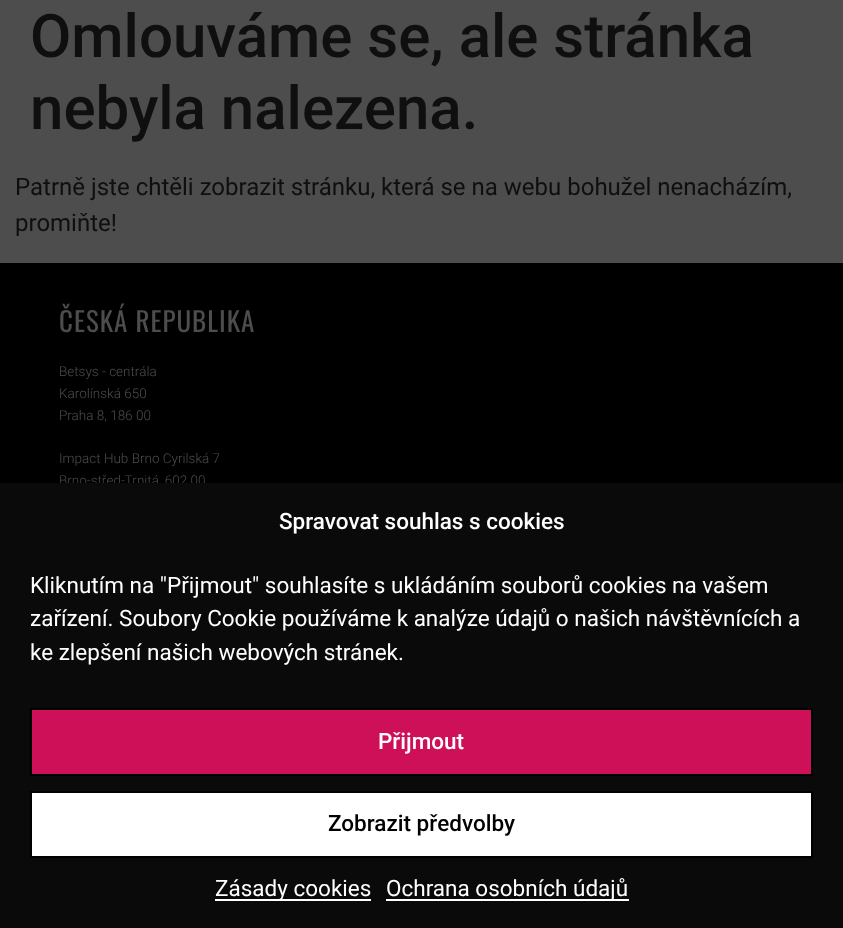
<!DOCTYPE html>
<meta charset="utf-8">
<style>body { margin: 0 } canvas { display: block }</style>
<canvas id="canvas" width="843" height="928"></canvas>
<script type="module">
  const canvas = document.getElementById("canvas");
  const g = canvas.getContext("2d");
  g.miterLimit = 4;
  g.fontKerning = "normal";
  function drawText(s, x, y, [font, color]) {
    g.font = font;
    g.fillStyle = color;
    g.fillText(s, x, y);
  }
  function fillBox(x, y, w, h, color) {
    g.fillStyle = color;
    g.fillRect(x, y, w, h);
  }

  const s1 = ["500 60px Roboto", "#0F0F0F"];
  const s2 = ["24px Roboto", "#0F0F0F"];
  const s3 = ["27px Oswald", "#4D4D4D"];
  const s4 = ["300 13.5px Roboto", "#4D4D4D"];
  const s5 = ["500 22.5px Roboto", "#FFFFFF"];
  const s6 = ["22.5px Roboto", "#FFFFFF"];
  const s7 = ["500 22.5px Roboto", "#000000"];

  fillBox(0, 0, 843, 928, "#4D4D4D");
  drawText("Omlouváme se, ale stránka", 30, 57, s1);
  drawText("nebyla nalezena.", 30, 129, s1);
  drawText("Patrně jste chtěli zobrazit stránku, která se na webu bohužel nenacházím,", 15, 195, s2);
  drawText("promiňte!", 15, 231, s2);
  fillBox(0, 263, 843, 220, "#000000");
  g.letterSpacing = "1px";
  drawText("ČESKÁ REPUBLIKA", 59, 332, s3);
  g.letterSpacing = "0px";
  drawText("Betsys - centrála", 59, 376, s4);
  drawText("Karolínská 650", 59, 398, s4);
  drawText("Praha 8, 186 00", 59, 420, s4);
  drawText("Impact Hub Brno Cyrilská 7", 59, 463, s4);
  drawText("Brno-střed-Trnitá, 602 00", 59, 485, s4);
  g.fillStyle = "rgba(0, 0, 0, 0.19)";
  g.filter = "blur(15px)";
  g.beginPath();
  g.rect(0, 498, 843, 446);
  g.fill();
  g.filter = "none";
  fillBox(0, 483, 843, 445, "#0A0A0A");
  drawText("Spravovat souhlas s cookies", 279, 529, s5);
  drawText("Kliknutím na \"Přijmout\" souhlasíte s ukládáním souborů cookies na vašem", 30, 593, s6);
  drawText("zařízení. Soubory Cookie používáme k analýze údajů o našich návštěvnících a", 30, 626, s6);
  drawText("ke zlepšení našich webových stránek.", 30, 660, s6);
  g.fillStyle = "#CE1059";
  g.beginPath();
  g.rect(31, 709, 781, 66);
  g.fill();
  g.strokeStyle = "#000000";
  g.lineWidth = 2;
  g.stroke();
  drawText("Přijmout", 378, 749, s5);
  g.beginPath();
  g.rect(31, 792, 781, 65);
  g.fill();
  g.stroke();
  drawText("Zobrazit předvolby", 328, 831, s7);
  fillBox(215, 899, 156, 2, "#FFFFFF");
  drawText("Zásady cookies", 215, 896, s6);
  fillBox(386, 899, 243, 2, "#FFFFFF");
  drawText("Ochrana osobních údajů", 386, 896, s6);
</script>
